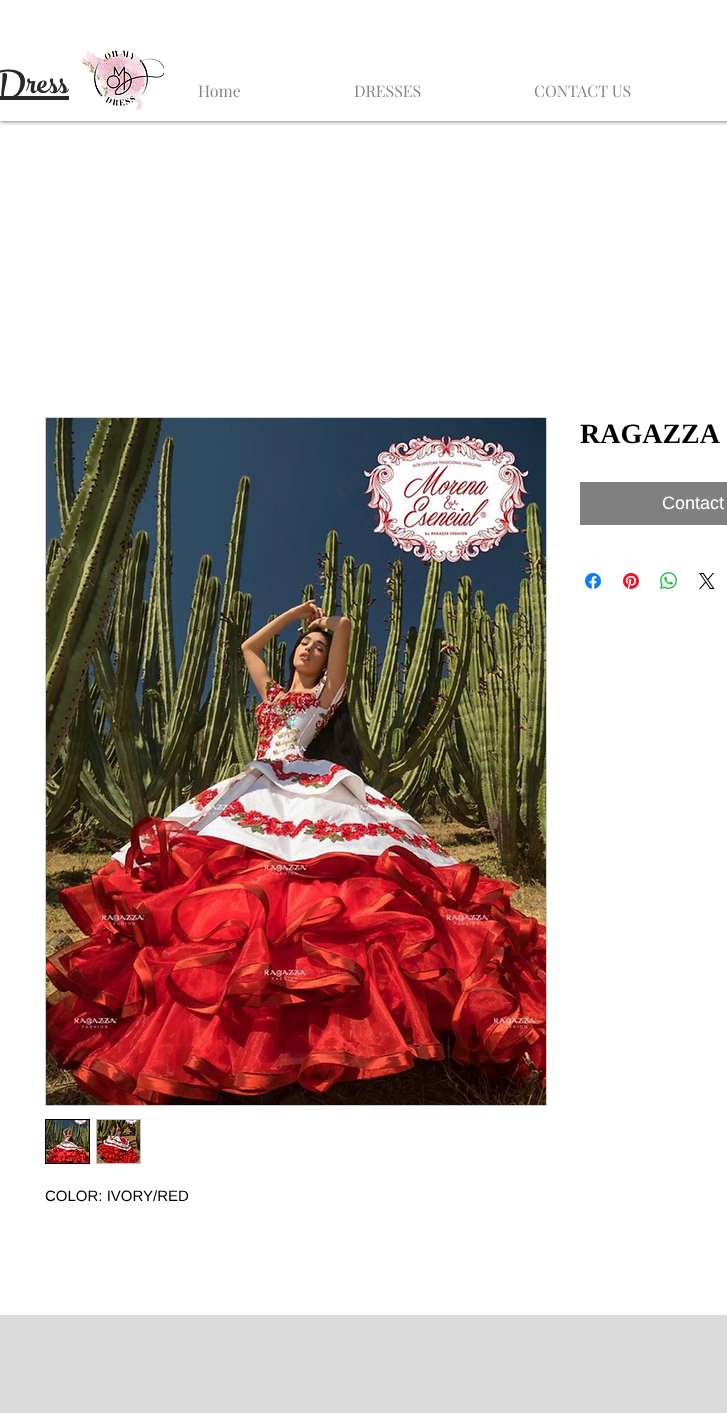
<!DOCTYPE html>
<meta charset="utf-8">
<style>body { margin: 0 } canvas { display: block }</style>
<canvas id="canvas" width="727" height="1413"></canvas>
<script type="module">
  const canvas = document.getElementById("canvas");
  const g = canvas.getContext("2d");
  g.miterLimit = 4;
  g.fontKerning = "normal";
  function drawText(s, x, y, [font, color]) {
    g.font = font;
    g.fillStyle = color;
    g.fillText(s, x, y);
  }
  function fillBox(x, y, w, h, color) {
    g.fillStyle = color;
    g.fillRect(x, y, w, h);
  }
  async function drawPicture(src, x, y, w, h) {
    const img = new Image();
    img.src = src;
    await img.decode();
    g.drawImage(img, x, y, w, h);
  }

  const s1 = ["47px 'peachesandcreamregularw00'", "#292929"];
  const s2 = ["16px Playfair Display", "#858585"];
  const s3 = ["bold 28px Liberation Serif", "#000000"];
  const s4 = ["18px Liberation Sans", "#FFFFFF"];
  const s5 = ["15px Liberation Sans", "#000000"];

  fillBox(0, 0, 727, 1413, "#FFFFFF");
  g.save();
  g.beginPath();
  g.rect(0, 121, 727, 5);
  g.clip();
  g.fillStyle = "rgba(0, 0, 0, 0.7)";
  g.filter = "blur(2.5px)";
  g.beginPath();
  g.rect(0, 0, 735, 121);
  g.fill();
  g.filter = "none";
  g.restore();
  fillBox(0, 96, 69, 4, "#292929");
  g.letterSpacing = "0.5px";
  drawText("Dress", -9, 93, s1);
  await drawPicture("pic1.png", 80, 48, 84, 62);
  g.letterSpacing = "0px";
  drawText("Home", 198, 97, s2);
  drawText("DRESSES", 354, 97, s2);
  drawText("CONTACT US", 534, 97, s2);
  drawText("RAGAZZA", 580, 443, s3);
  fillBox(580, 482, 147, 43, "#808080");
  drawText("Contact", 662, 509, s4);
  await drawPicture("pic2.png", 585, 573, 16, 16);
  await drawPicture("pic3.png", 623, 573, 16, 16);
  await drawPicture("pic4.png", 660, 572, 17, 17);
  await drawPicture("pic5.png", 699, 573, 16, 16);
  g.strokeStyle = "#CCCCCC";
  g.strokeRect(45.5, 417.5, 501, 688);
  await drawPicture("pic6.png", 46, 418, 500, 687);
  g.strokeStyle = "#000000";
  g.strokeRect(45.5, 1119.5, 44, 44);
  await drawPicture("pic7.png", 46, 1120, 43, 43);
  g.strokeStyle = "#BFBFBF";
  g.strokeRect(96.5, 1119.5, 44, 44);
  await drawPicture("pic8.png", 97, 1120, 43, 43);
  drawText("COLOR: IVORY/RED", 45, 1201, s5);
  fillBox(0, 1315, 727, 98, "#DBDBDB");
</script>
